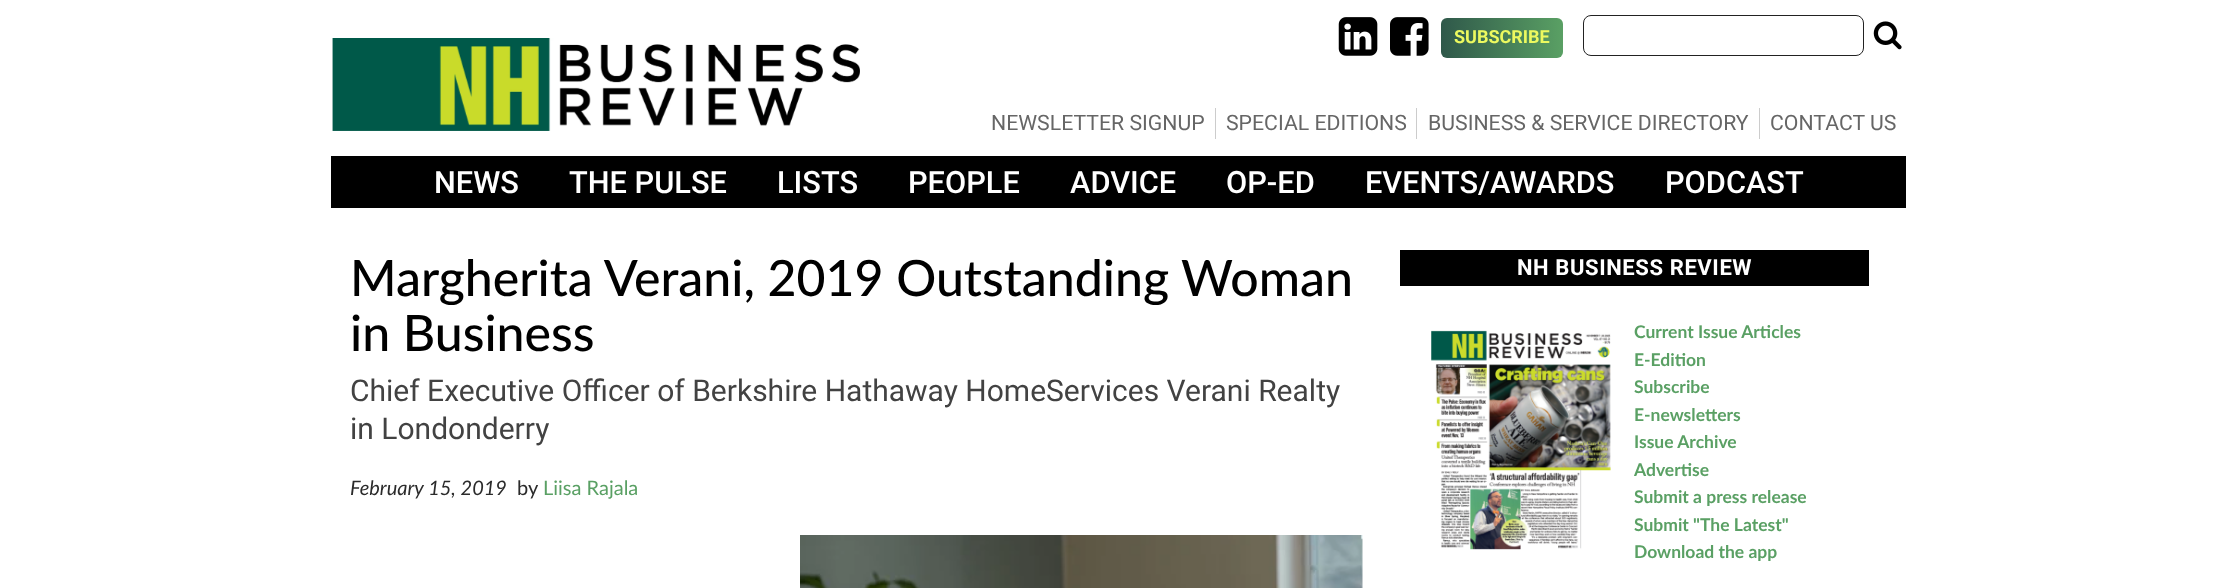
<!DOCTYPE html>
<meta charset="utf-8">
<style>body { margin: 0 } canvas { display: block }</style>
<canvas id="canvas" width="2237" height="588"></canvas>
<script type="module">
  const canvas = document.getElementById("canvas");
  const g = canvas.getContext("2d");
  g.miterLimit = 4;
  g.fontKerning = "normal";
  function drawText(s, x, y, [font, color]) {
    g.font = font;
    g.fillStyle = color;
    g.fillText(s, x, y);
  }
  function fillBox(x, y, w, h, color) {
    g.fillStyle = color;
    g.fillRect(x, y, w, h);
  }
  async function drawPicture(src, x, y, w, h) {
    const img = new Image();
    img.src = src;
    await img.decode();
    g.drawImage(img, x, y, w, h);
  }
  let gradient;

  const s1 = ["bold 18px Roboto", "#ECF95F"];
  const s2 = ["21.25px Roboto", "#666666"];
  const s3 = ["500 30.75px Roboto", "#FFFFFF"];
  const s4 = ["500 50px Lato", "#000000"];
  const s5 = ["30px Roboto", "#424242"];
  const s6 = ["italic 20px Lato", "#2B2B2B"];
  const s7 = ["20px Lato", "#2B2B2B"];
  const s8 = ["20px Lato", "#5AA064"];
  const s9 = ["bold 22px Roboto", "#FFFFFF"];
  const s10 = ["bold 17.5px Lato", "#5AA064"];

  fillBox(0, 0, 2237, 588, "#FFFFFF");
  await drawPicture("pic1.png", 332, 38, 528, 93);
  await drawPicture("pic2.png", 1338, 17, 40, 39);
  await drawPicture("pic3.png", 1390, 17, 39, 39);
  gradient = g.createLinearGradient(1441, 38, 1563, 37);
  gradient.addColorStop(0, "#2F584A");
  gradient.addColorStop(1, "#5AA064");
  g.fillStyle = gradient;
  g.beginPath();
  g.roundRect(1441, 18, 122, 40, 6);
  g.fill();
  drawText("SUBSCRIBE", 1454, 43, s1);
  g.beginPath();
  g.roundRect(1583.5, 15.5, 280, 40, 7.5);
  g.strokeStyle = "#222222";
  g.stroke();
  await drawPicture("pic4.png", 1873, 21, 29, 29);
  fillBox(1215, 108, 1, 31, "#CCCCCC");
  drawText("NEWSLETTER SIGNUP", 991, 130, s2);
  fillBox(1416, 108, 1, 31, "#CCCCCC");
  drawText("SPECIAL EDITIONS", 1226, 130, s2);
  fillBox(1759, 108, 1, 31, "#CCCCCC");
  drawText("BUSINESS & SERVICE DIRECTORY", 1428, 130, s2);
  drawText("CONTACT US", 1770, 130, s2);
  fillBox(331, 156, 1575, 52, "#000000");
  drawText("NEWS", 434, 193, s3);
  drawText("THE PULSE", 569, 193, s3);
  drawText("LISTS", 777, 193, s3);
  drawText("PEOPLE", 908, 193, s3);
  drawText("ADVICE", 1070, 193, s3);
  drawText("OP-ED", 1226, 193, s3);
  drawText("EVENTS/AWARDS", 1365, 193, s3);
  drawText("PODCAST", 1665, 193, s3);
  drawText("Margherita Verani, 2019 Outstanding Woman", 350, 296, s4);
  drawText("in Business", 350, 351, s4);
  drawText("Chief Executive Officer of Berkshire Hathaway HomeServices Verani Realty", 350, 401, s5);
  drawText("in Londonderry", 350, 439, s5);
  drawText("February 15, 2019", 350, 495, s6);
  drawText("by", 517, 495, s7);
  drawText("Liisa Rajala", 543, 495, s8);
  await drawPicture("pic5.png", 800, 535, 563, 53);
  fillBox(1400, 250, 469, 36, "#000000");
  g.letterSpacing = "0.6px";
  drawText("NH BUSINESS REVIEW", 1517, 275, s9);
  await drawPicture("pic6.png", 1431, 330, 180, 220);
  g.letterSpacing = "0px";
  drawText("Current Issue Articles", 1634, 338, s10);
  drawText("E-Edition", 1634, 366, s10);
  drawText("Subscribe", 1634, 393, s10);
  drawText("E-newsletters", 1634, 421, s10);
  drawText("Issue Archive", 1634, 448, s10);
  drawText("Advertise", 1634, 476, s10);
  drawText("Submit a press release", 1634, 503, s10);
  drawText("Submit \"The Latest\"", 1634, 531, s10);
  drawText("Download the app", 1634, 558, s10);
</script>
